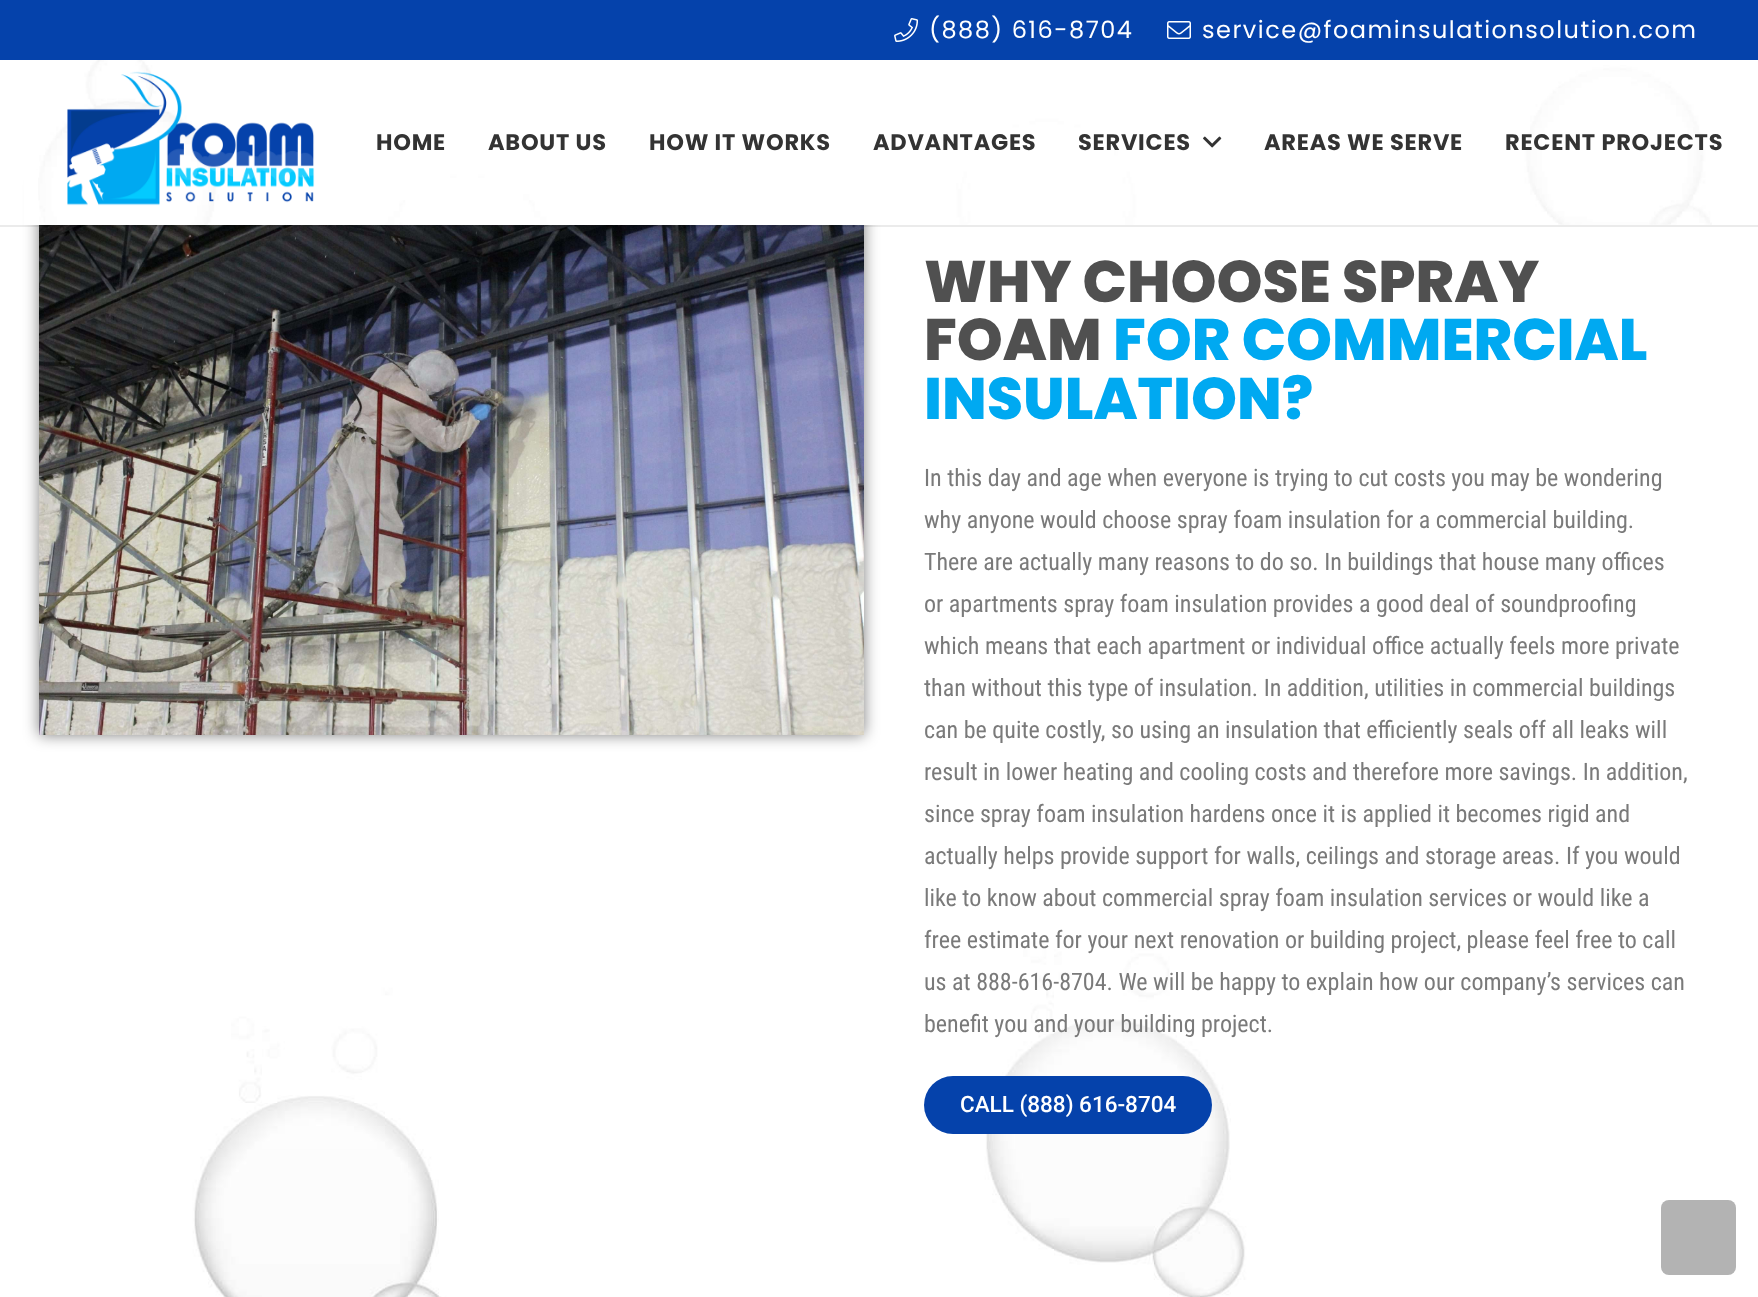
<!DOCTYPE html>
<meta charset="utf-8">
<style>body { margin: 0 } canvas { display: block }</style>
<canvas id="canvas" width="1758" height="1297"></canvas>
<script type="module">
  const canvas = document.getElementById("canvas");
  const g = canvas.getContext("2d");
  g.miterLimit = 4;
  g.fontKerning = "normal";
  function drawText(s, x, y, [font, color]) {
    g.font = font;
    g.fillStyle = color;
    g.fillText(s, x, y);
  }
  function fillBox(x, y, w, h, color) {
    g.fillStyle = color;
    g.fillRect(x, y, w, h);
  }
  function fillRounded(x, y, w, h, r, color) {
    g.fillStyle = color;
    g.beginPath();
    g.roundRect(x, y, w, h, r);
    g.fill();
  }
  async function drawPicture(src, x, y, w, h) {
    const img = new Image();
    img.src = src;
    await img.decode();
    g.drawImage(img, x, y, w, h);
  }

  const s1 = ["24px Poppins", "#FFFFFF"];
  const s2 = ["bold 22.5px Poppins", "#333333"];
  const s3 = ["800 58.5px Poppins", "#505050"];
  const s4 = ["800 58.5px Poppins", "#00A9F1"];
  const s5 = ["24px Roboto Condensed", "#7A7A7A"];
  const s6 = ["500 22.5px Roboto", "#FFFFFF"];

  fillBox(0, 0, 1758, 1297, "#FFFFFF");
  fillBox(0, 0, 1758, 60, "#0542AB");
  await drawPicture("pic1.png", 894, 18, 25, 24);
  g.letterSpacing = "1.5px";
  drawText("(888) 616-8704", 929, 38, s1);
  await drawPicture("pic2.png", 1167, 21, 24, 18);
  drawText("service@foaminsulationsolution.com", 1202, 38, s1);
  await drawPicture("pic6.png", 0, 225, 1758, 1072);
  g.fillStyle = "rgba(0, 0, 0, 0.5)";
  g.filter = "blur(7.5px)";
  g.beginPath();
  g.rect(39, 185, 825, 550);
  g.fill();
  g.filter = "none";
  await drawPicture("pic7.png", 39, 225, 825, 510);
  fillBox(0, 225, 1758, 2, "rgba(0, 0, 0, 0.08)");
  fillBox(24, 170, 855, 55, "#FFFFFF");
  await drawPicture("pic3.png", 38, 60, 1674, 165);
  await drawPicture("pic4.png", 67, 71, 248, 135);
  g.letterSpacing = "0.75px";
  drawText("HOME", 376, 150, s2);
  drawText("ABOUT US", 488, 150, s2);
  drawText("HOW IT WORKS", 649, 150, s2);
  drawText("ADVANTAGES", 873, 150, s2);
  drawText("SERVICES", 1078, 150, s2);
  await drawPicture("pic5.png", 1203, 136, 19, 12);
  drawText("AREAS WE SERVE", 1264, 150, s2);
  drawText("RECENT PROJECTS", 1505, 150, s2);
  g.letterSpacing = "0px";
  drawText("WHY CHOOSE SPRAY", 924, 302, s3);
  drawText("FOAM", 924, 360, s3);
  drawText("FOR COMMERCIAL", 1113, 360, s4);
  drawText("INSULATION?", 924, 419, s4);
  drawText("In this day and age when everyone is trying to cut costs you may be wondering", 924, 486, s5);
  drawText("why anyone would choose spray foam insulation for a commercial building.", 924, 528, s5);
  drawText("There are actually many reasons to do so. In buildings that house many offices", 924, 570, s5);
  drawText("or apartments spray foam insulation provides a good deal of soundproofing", 924, 612, s5);
  drawText("which means that each apartment or individual office actually feels more private", 924, 654, s5);
  drawText("than without this type of insulation. In addition, utilities in commercial buildings", 924, 696, s5);
  drawText("can be quite costly, so using an insulation that efficiently seals off all leaks will", 924, 738, s5);
  drawText("result in lower heating and cooling costs and therefore more savings. In addition,", 924, 780, s5);
  drawText("since spray foam insulation hardens once it is applied it becomes rigid and", 924, 822, s5);
  drawText("actually helps provide support for walls, ceilings and storage areas. If you would", 924, 864, s5);
  drawText("like to know about commercial spray foam insulation services or would like a", 924, 906, s5);
  drawText("free estimate for your next renovation or building project, please feel free to call", 924, 948, s5);
  drawText("us at 888-616-8704. We will be happy to explain how our company’s services can", 924, 990, s5);
  drawText("benefit you and your building project.", 924, 1032, s5);
  fillRounded(924, 1076, 288, 58, 29, "#0542AB");
  drawText("CALL (888) 616-8704", 960, 1112, s6);
  fillRounded(1661, 1200, 75, 75, 8, "#B3B3B3");
</script>
